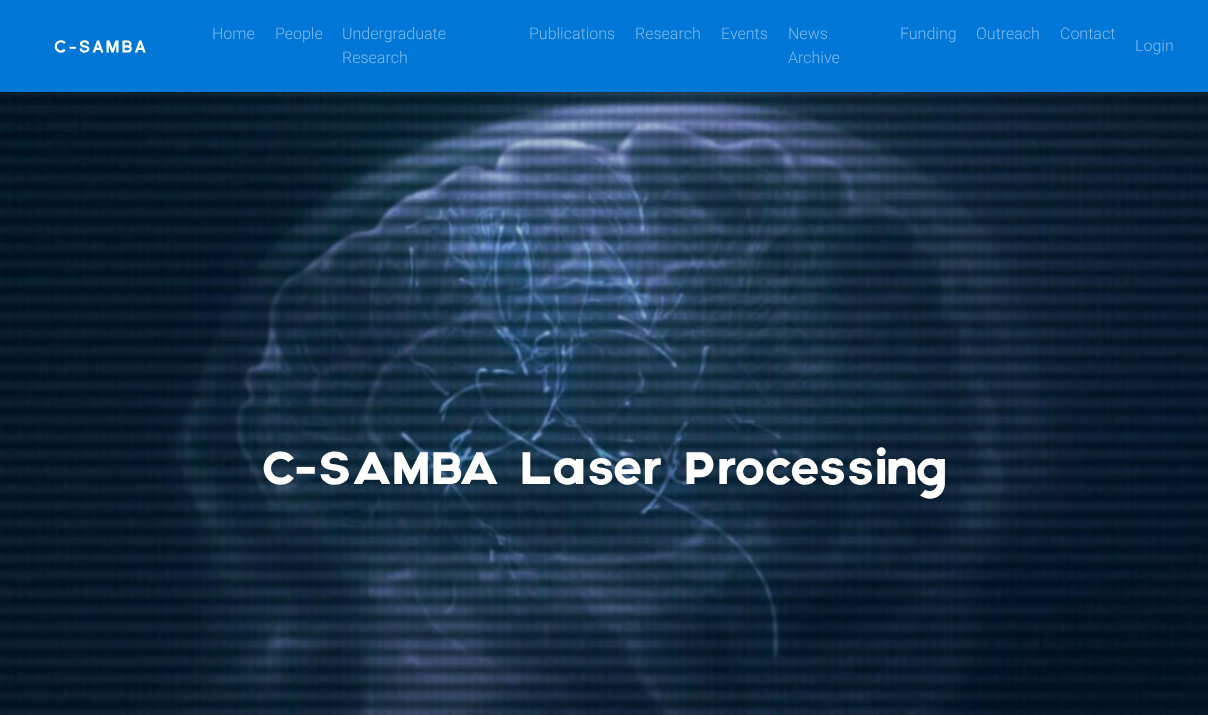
<!DOCTYPE html>
<meta charset="utf-8">
<style>body { margin: 0 } canvas { display: block }</style>
<canvas id="canvas" width="1208" height="715"></canvas>
<script type="module">
  const canvas = document.getElementById("canvas");
  const g = canvas.getContext("2d");
  g.miterLimit = 4;
  g.fontKerning = "normal";
  function drawText(s, x, y, [font, color]) {
    g.font = font;
    g.fillStyle = color;
    g.fillText(s, x, y);
  }
  function fillBox(x, y, w, h, color) {
    g.fillStyle = color;
    g.fillRect(x, y, w, h);
  }
  async function drawPicture(src, x, y, w, h) {
    const img = new Image();
    img.src = src;
    await img.decode();
    g.drawImage(img, x, y, w, h);
  }

  const s1 = ["900 16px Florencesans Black", "#FFFFFF"];
  const s2 = ["300 16px Roboto", "#80BBEB"];
  const s3 = ["100 48.8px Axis", "#FFFFFF"];

  fillBox(0, 0, 1208, 715, "#0077D7");
  g.letterSpacing = "2px";
  drawText("C-SAMBA", 54, 52, s1);
  g.letterSpacing = "0px";
  drawText("Home", 212, 39, s2);
  drawText("People", 275, 39, s2);
  drawText("Undergraduate", 342, 39, s2);
  drawText("Research", 342, 63, s2);
  drawText("Publications", 529, 39, s2);
  drawText("Research", 635, 39, s2);
  drawText("Events", 721, 39, s2);
  drawText("News", 788, 39, s2);
  drawText("Archive", 788, 63, s2);
  drawText("Funding", 900, 39, s2);
  drawText("Outreach", 976, 39, s2);
  drawText("Contact", 1060, 39, s2);
  drawText("Login", 1135, 51, s2);
  await drawPicture("pic1.png", 0, 92, 1208, 623);
  g.letterSpacing = "-1px";
  drawText("C-SAMBA Laser Processing", 261, 484, s3);
</script>
